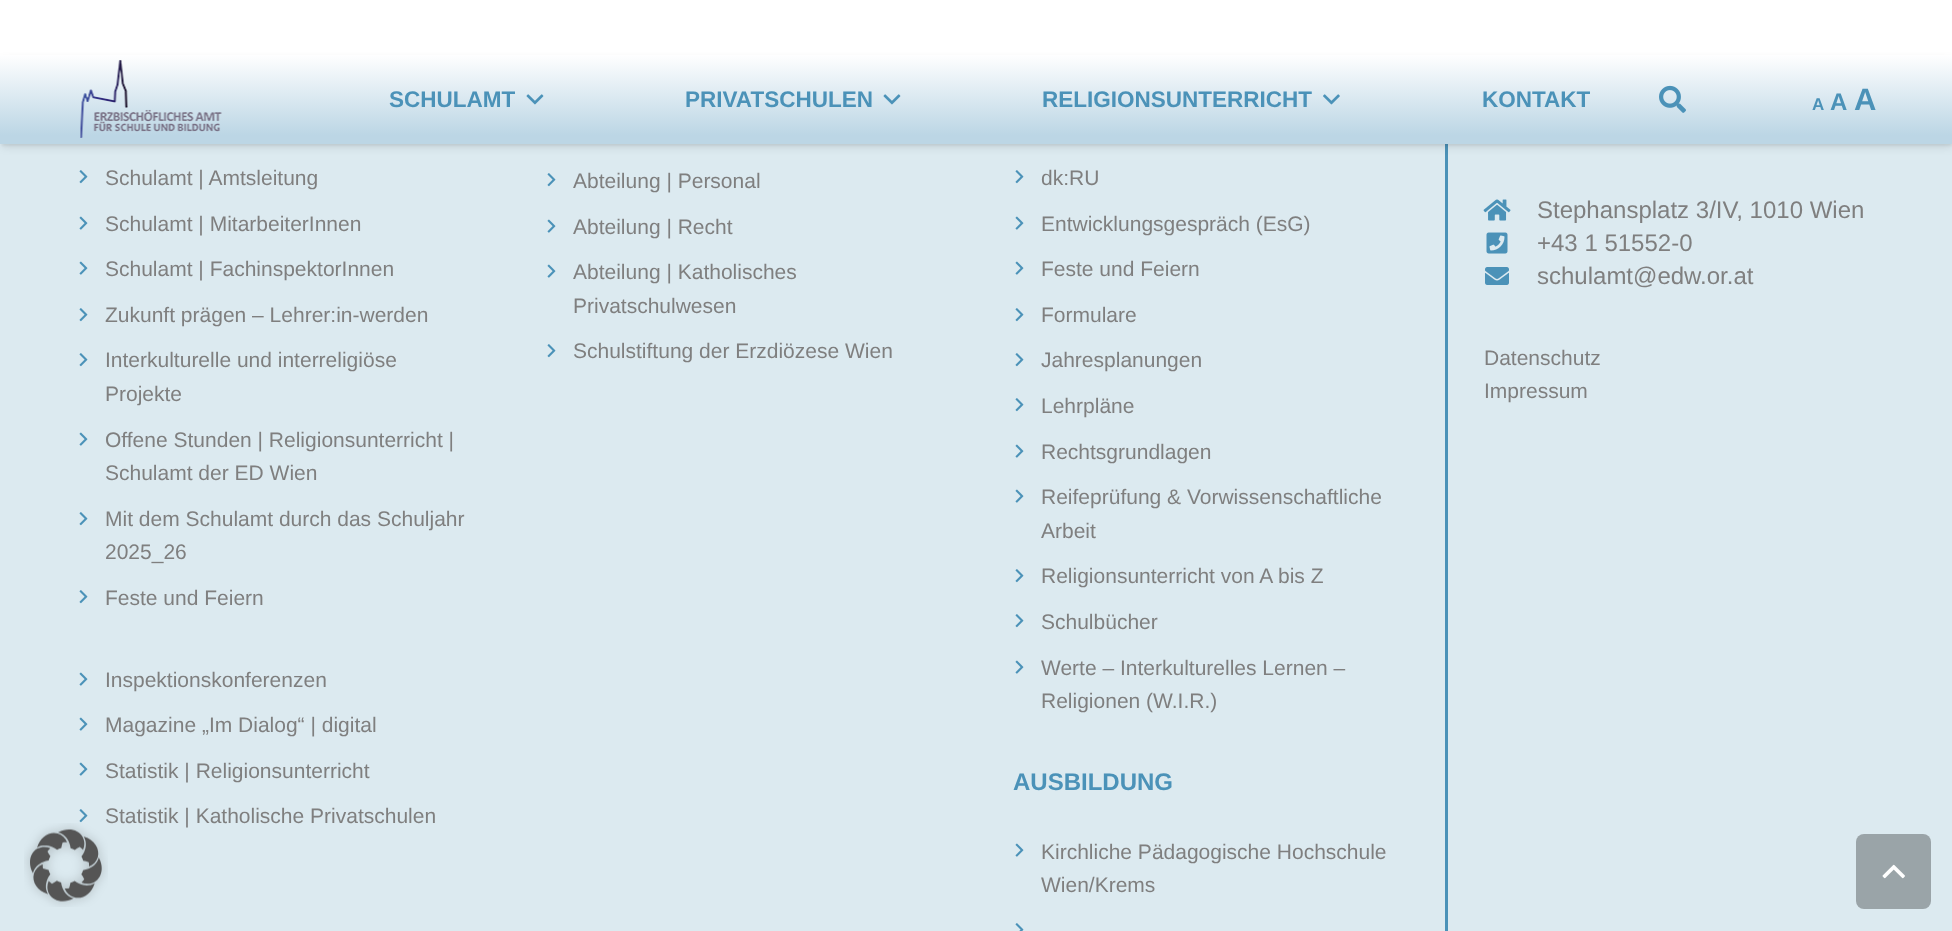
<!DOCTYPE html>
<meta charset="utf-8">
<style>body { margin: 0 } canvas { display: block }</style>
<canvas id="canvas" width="1952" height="931"></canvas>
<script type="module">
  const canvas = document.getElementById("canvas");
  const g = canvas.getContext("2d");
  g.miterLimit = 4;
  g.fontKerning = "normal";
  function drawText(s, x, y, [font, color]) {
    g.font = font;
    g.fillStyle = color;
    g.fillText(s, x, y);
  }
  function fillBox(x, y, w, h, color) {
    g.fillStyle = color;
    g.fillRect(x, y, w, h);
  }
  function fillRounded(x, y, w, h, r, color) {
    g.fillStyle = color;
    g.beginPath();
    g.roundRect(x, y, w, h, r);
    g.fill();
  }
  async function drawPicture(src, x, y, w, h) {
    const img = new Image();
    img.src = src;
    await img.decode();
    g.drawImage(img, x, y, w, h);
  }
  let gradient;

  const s1 = ["bold 22.5px Liberation Sans", "#4B92B8"];
  const s2 = ["bold 17px Liberation Sans", "#4B92B8"];
  const s3 = ["bold 24px Liberation Sans", "#4B92B8"];
  const s4 = ["bold 31px Liberation Sans", "#4B92B8"];
  const s5 = ["21px Liberation Sans", "#7F7F7F"];
  const s6 = ["24px Liberation Sans", "#7F7F7F"];

  fillBox(0, 0, 1952, 931, "#FFFFFF");
  fillBox(0, 144, 1952, 787, "#DCEAF0");
  fillBox(1445, 144, 3, 787, "#4B92B8");
  g.fillStyle = "rgba(0, 0, 0, 0.05)";
  g.filter = "blur(1px)";
  g.beginPath();
  g.rect(2, 59, 1950, 87);
  g.fill();
  g.filter = "none";
  g.fillStyle = "rgba(0, 0, 0, 0.1)";
  g.filter = "blur(4px)";
  g.beginPath();
  g.rect(2, 60, 1950, 87);
  g.fill();
  g.filter = "none";
  gradient = g.createLinearGradient(977, 144, 977, 54);
  gradient.addColorStop(0.1, "#BCD6E5");
  gradient.addColorStop(1, "#FFFFFF");
  g.fillStyle = gradient;
  g.fillRect(0, 55, 1952, 89);
  await drawPicture("pic1.png", 80, 60, 142, 78);
  drawText("SCHULAMT", 389, 107, s1);
  await drawPicture("pic2.png", 526, 94, 18, 11);
  drawText("PRIVATSCHULEN", 685, 107, s1);
  await drawPicture("pic2.png", 883, 94, 18, 11);
  drawText("RELIGIONSUNTERRICHT", 1042, 107, s1);
  await drawPicture("pic3.png", 1323, 94, 17, 11);
  drawText("KONTAKT", 1482, 107, s1);
  await drawPicture("pic4.png", 1659, 85, 27, 28);
  drawText("A", 1812, 110, s2);
  drawText("A", 1830, 110, s3);
  drawText("A", 1854, 110, s4);
  drawText("Statistik | Katholische Privatschulen", 105, 823, s5);
  await drawPicture("pic5.png", 24, 823, 84, 84);
  await drawPicture("pic6.png", 79, 170, 9, 14);
  drawText("Schulamt | Amtsleitung", 105, 185, s5);
  await drawPicture("pic7.png", 79, 216, 9, 14);
  drawText("Schulamt | MitarbeiterInnen", 105, 231, s5);
  await drawPicture("pic7.png", 79, 261, 9, 14);
  drawText("Schulamt | FachinspektorInnen", 105, 276, s5);
  await drawPicture("pic6.png", 79, 308, 9, 14);
  drawText("Zukunft prägen – Lehrer:in-werden", 105, 322, s5);
  await drawPicture("pic6.png", 79, 353, 9, 14);
  drawText("Interkulturelle und interreligiöse", 105, 367, s5);
  drawText("Projekte", 105, 401, s5);
  await drawPicture("pic7.png", 79, 432, 9, 14);
  drawText("Offene Stunden | Religionsunterricht |", 105, 447, s5);
  drawText("Schulamt der ED Wien", 105, 480, s5);
  await drawPicture("pic6.png", 79, 512, 9, 14);
  drawText("Mit dem Schulamt durch das Schuljahr", 105, 526, s5);
  drawText("2025_26", 105, 559, s5);
  await drawPicture("pic6.png", 79, 590, 9, 14);
  drawText("Feste und Feiern", 105, 605, s5);
  await drawPicture("pic7.png", 79, 672, 9, 14);
  drawText("Inspektionskonferenzen", 105, 687, s5);
  await drawPicture("pic7.png", 79, 717, 9, 14);
  drawText("Magazine „Im Dialog“ | digital", 105, 732, s5);
  await drawPicture("pic7.png", 79, 762, 9, 14);
  drawText("Statistik | Religionsunterricht", 105, 778, s5);
  await drawPicture("pic6.png", 79, 809, 9, 14);
  await drawPicture("pic6.png", 547, 173, 9, 14);
  drawText("Abteilung | Personal", 573, 188, s5);
  await drawPicture("pic7.png", 547, 219, 9, 14);
  drawText("Abteilung | Recht", 573, 234, s5);
  await drawPicture("pic7.png", 547, 264, 9, 14);
  drawText("Abteilung | Katholisches", 573, 279, s5);
  drawText("Privatschulwesen", 573, 313, s5);
  await drawPicture("pic6.png", 547, 344, 9, 14);
  drawText("Schulstiftung der Erzdiözese Wien", 573, 358, s5);
  await drawPicture("pic6.png", 1015, 170, 9, 14);
  drawText("dk:RU", 1041, 185, s5);
  await drawPicture("pic7.png", 1015, 216, 9, 14);
  drawText("Entwicklungsgespräch (EsG)", 1041, 231, s5);
  await drawPicture("pic7.png", 1015, 261, 9, 14);
  drawText("Feste und Feiern", 1041, 276, s5);
  await drawPicture("pic6.png", 1015, 308, 9, 14);
  drawText("Formulare", 1041, 322, s5);
  await drawPicture("pic6.png", 1015, 353, 9, 14);
  drawText("Jahresplanungen", 1041, 367, s5);
  await drawPicture("pic6.png", 1015, 398, 9, 14);
  drawText("Lehrpläne", 1041, 413, s5);
  await drawPicture("pic7.png", 1015, 444, 9, 14);
  drawText("Rechtsgrundlagen", 1041, 459, s5);
  await drawPicture("pic7.png", 1015, 489, 9, 14);
  drawText("Reifeprüfung & Vorwissenschaftliche", 1041, 504, s5);
  drawText("Arbeit", 1041, 538, s5);
  await drawPicture("pic6.png", 1015, 569, 9, 14);
  drawText("Religionsunterricht von A bis Z", 1041, 583, s5);
  await drawPicture("pic6.png", 1015, 614, 9, 14);
  drawText("Schulbücher", 1041, 629, s5);
  await drawPicture("pic7.png", 1015, 660, 9, 14);
  drawText("Werte – Interkulturelles Lernen –", 1041, 675, s5);
  drawText("Religionen (W.I.R.)", 1041, 708, s5);
  drawText("AUSBILDUNG", 1013, 790, s3);
  await drawPicture("pic7.png", 1015, 843, 9, 14);
  drawText("Kirchliche Pädagogische Hochschule", 1041, 859, s5);
  drawText("Wien/Krems", 1041, 892, s5);
  await drawPicture("pic8.png", 1015, 923, 9, 8);
  await drawPicture("pic9.png", 1483, 199, 28, 22);
  drawText("Stephansplatz 3/IV, 1010 Wien", 1537, 218, s6);
  await drawPicture("pic10.png", 1486, 232, 22, 22);
  drawText("+43 1 51552-0", 1537, 251, s6);
  await drawPicture("pic11.png", 1485, 267, 24, 18);
  drawText("schulamt@edw.or.at", 1537, 284, s6);
  drawText("Datenschutz", 1484, 365, s5);
  drawText("Impressum", 1484, 398, s5);
  fillRounded(1856, 834, 75, 75, 8, "#9AA4A8");
  await drawPicture("pic12.png", 1882, 864, 23, 15);
</script>
